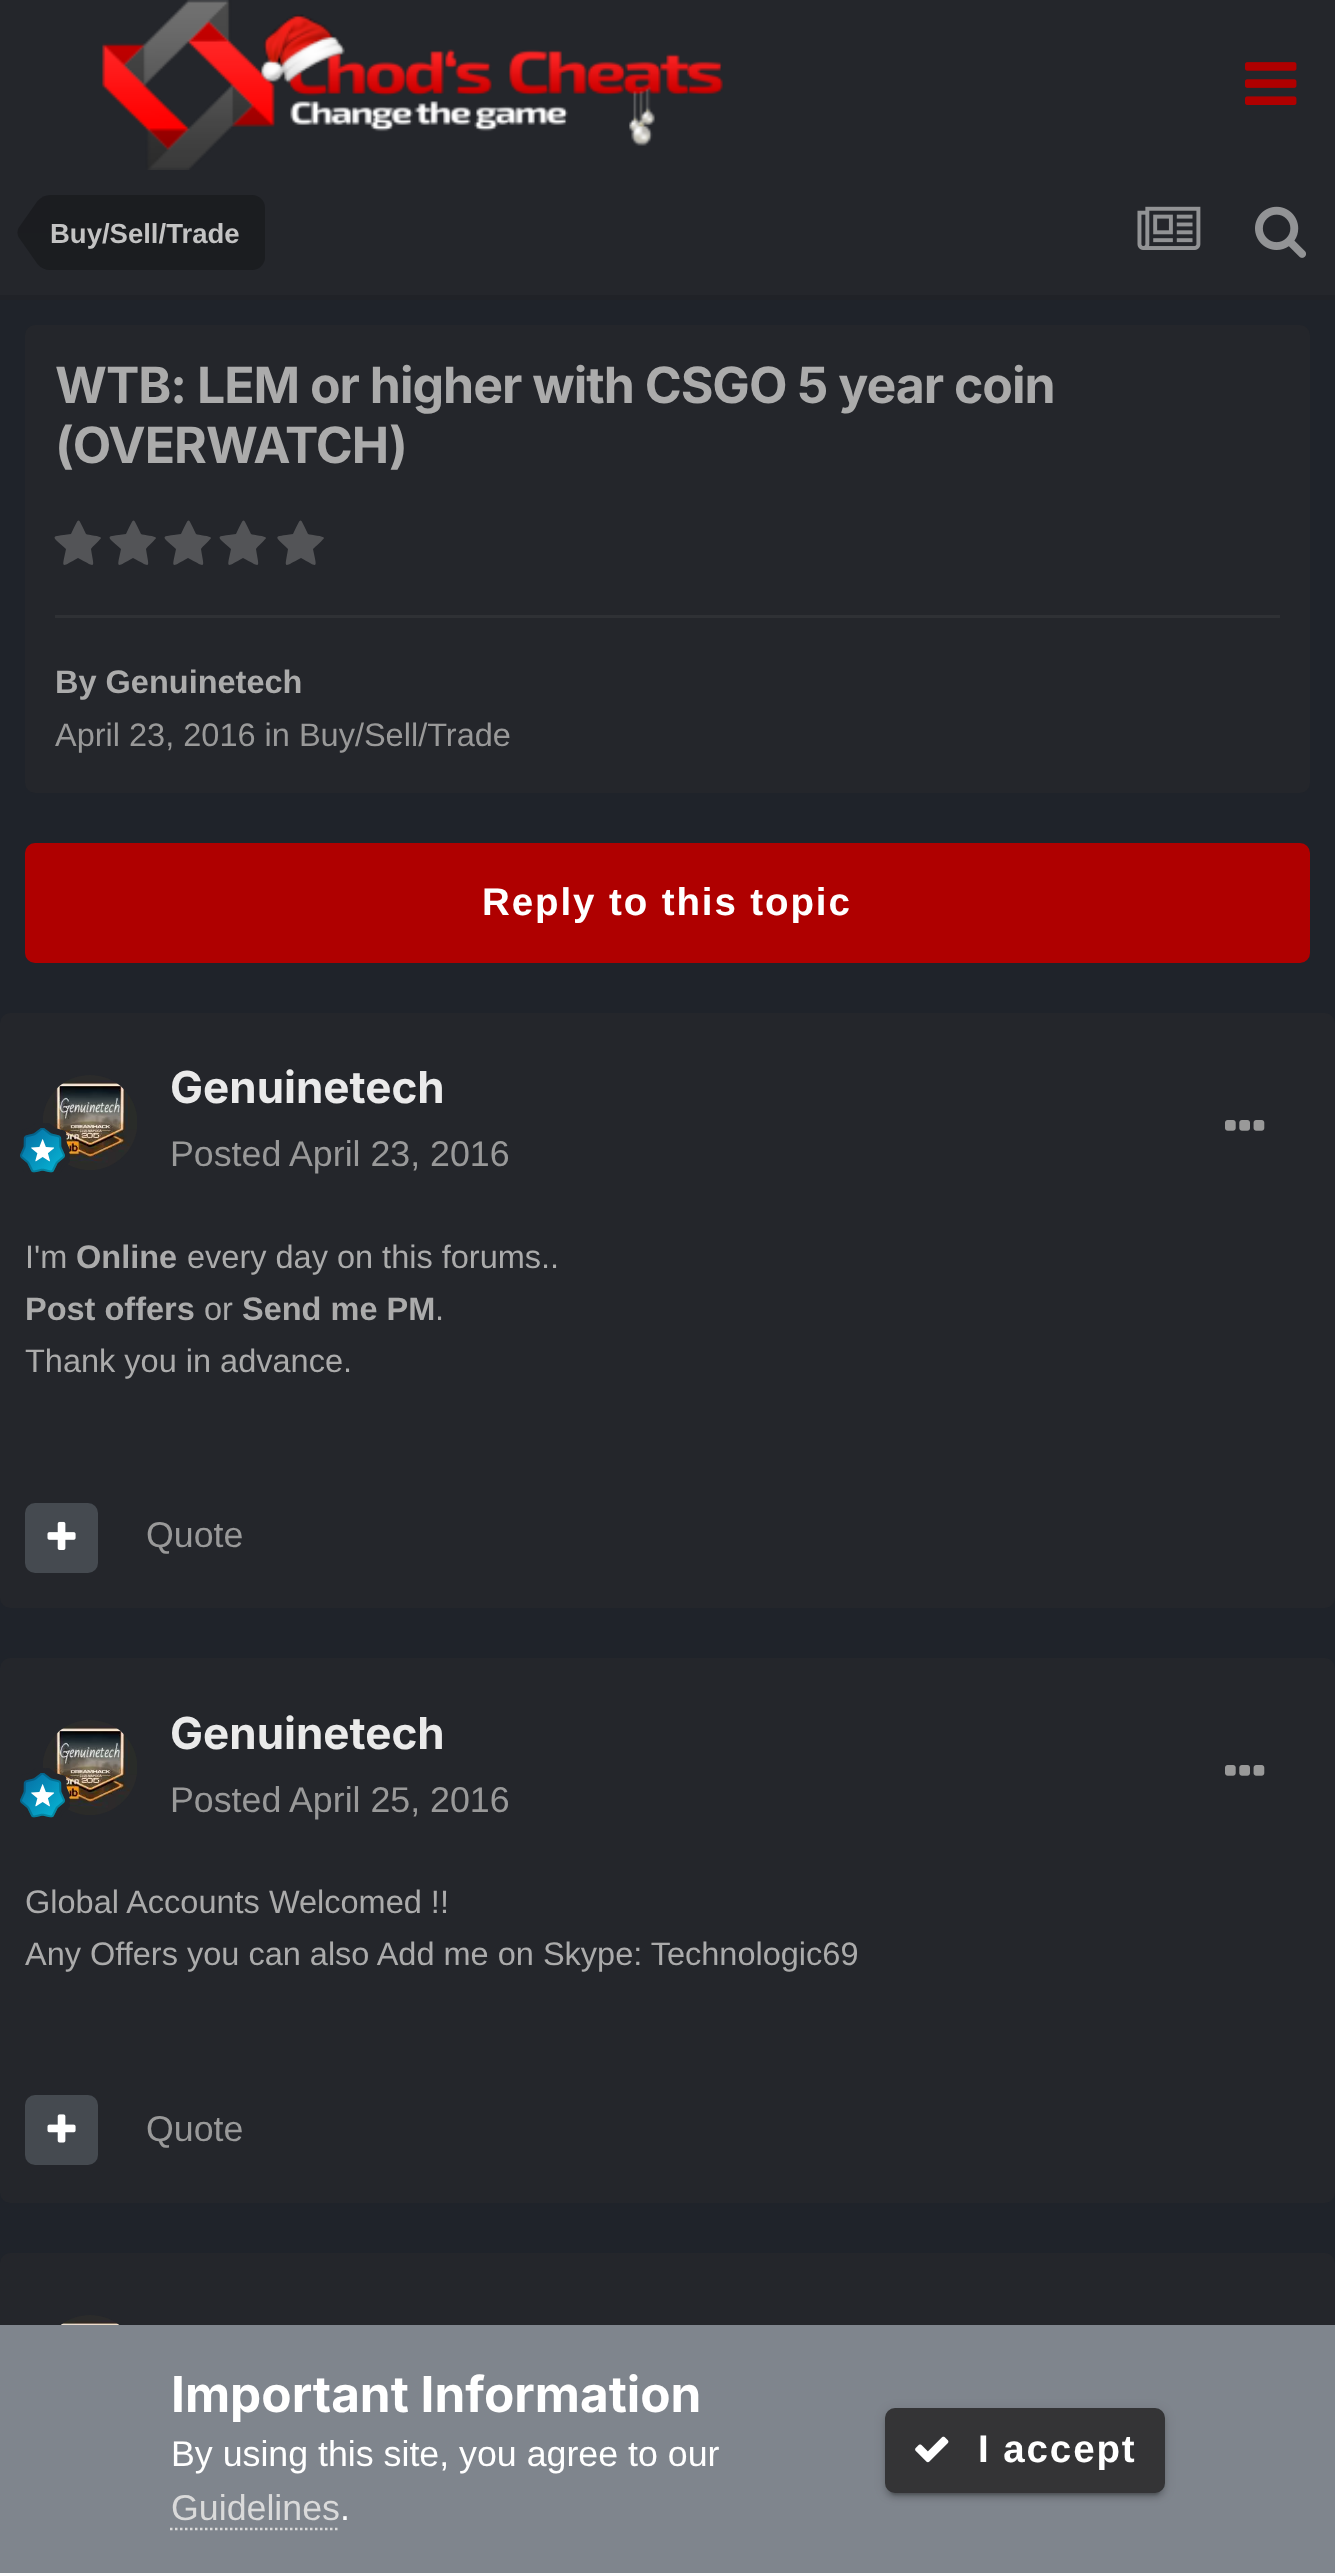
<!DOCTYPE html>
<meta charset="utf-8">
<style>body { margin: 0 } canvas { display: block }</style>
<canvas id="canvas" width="1335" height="2573"></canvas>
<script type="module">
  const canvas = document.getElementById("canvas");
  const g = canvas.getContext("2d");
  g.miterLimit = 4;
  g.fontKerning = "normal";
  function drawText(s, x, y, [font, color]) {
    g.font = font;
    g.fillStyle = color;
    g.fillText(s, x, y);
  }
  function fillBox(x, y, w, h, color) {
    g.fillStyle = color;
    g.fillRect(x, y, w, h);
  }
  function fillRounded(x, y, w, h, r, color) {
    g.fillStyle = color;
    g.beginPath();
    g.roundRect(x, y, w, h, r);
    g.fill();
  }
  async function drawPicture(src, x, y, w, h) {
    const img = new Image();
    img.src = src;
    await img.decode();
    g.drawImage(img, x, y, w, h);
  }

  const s1 = ["bold 27.5px Liberation Sans", "#C3C3C3"];
  const s2 = ["bold 50px Inter", "#ABABAB"];
  const s3 = ["bold 32.5px Liberation Sans", "#ABABAB"];
  const s4 = ["32.5px Liberation Sans", "#999999"];
  const s5 = ["bold 38.5px Liberation Sans", "#FFFFFF"];
  const s6 = ["bold 44px Inter", "#EAEAEA"];
  const s7 = ["35.75px Liberation Sans", "#999999"];
  const s8 = ["32.5px Liberation Sans", "#ABABAB"];
  const s9 = ["bold 49.5px Inter", "#FFFFFF"];
  const s10 = ["35.75px Liberation Sans", "#FFFFFF"];
  const s11 = ["35.75px Liberation Sans", "#DADADA"];

  fillBox(0, 0, 1335, 2573, "#24262B");
  await drawPicture("pic1.png", 102, 0, 621, 170);
  await drawPicture("pic2.png", 1245, 62, 52, 43);
  fillBox(0, 295, 1335, 5, "#202227");
  g.fillStyle = "#1B1D20";
  g.beginPath();
  g.roundRect(50, 195, 215, 75, [0, 13, 13, 0]);
  g.fill();
  g.beginPath();
  g.moveTo(18.5, 237);
  g.bezierCurveTo(18, 235.5, 17.5, 234, 17.5, 232.5);
  g.lineTo(50, 232.5);
  g.lineTo(50, 270);
  g.bezierCurveTo(45.5, 270, 41, 268, 37.5, 264);
  g.closePath();
  g.fill();
  g.fillStyle = "rgba(0, 0, 0, 0.25)";
  g.beginPath();
  g.moveTo(50, 195);
  g.lineTo(50, 232.5);
  g.lineTo(17.5, 232.5);
  g.bezierCurveTo(17.5, 231, 18, 229.5, 18.5, 228);
  g.lineTo(37.5, 201);
  g.bezierCurveTo(41, 197, 45.5, 195, 50, 195);
  g.closePath();
  g.fill();
  drawText("Buy/Sell/Trade", 50, 243, s1);
  await drawPicture("pic3.png", 1137, 206, 64, 44);
  await drawPicture("pic4.png", 1255, 206, 51, 52);
  fillBox(0, 300, 1335, 1963, "#1F232A");
  fillRounded(25, 325, 1285, 468, 10, "#24262B");
  g.letterSpacing = "-1px";
  drawText("WTB: LEM or higher with CSGO 5 year coin", 55, 403, s2);
  drawText("(OVERWATCH)", 55, 463, s2);
  g.fillStyle = "#535457";
  g.beginPath();
  g.moveTo(101, 538);
  g.bezierCurveTo(101, 539, 92, 547, 91, 549);
  g.bezierCurveTo(94, 569, 97, 568, 78, 558);
  g.bezierCurveTo(60, 568, 62, 569, 66, 549);
  g.bezierCurveTo(51, 535, 49, 537, 71, 534);
  g.bezierCurveTo(80, 516, 77, 516, 86, 534);
  g.bezierCurveTo(88, 535, 101, 536, 101, 538);
  g.closePath();
  g.fill();
  g.beginPath();
  g.moveTo(156, 538);
  g.bezierCurveTo(156, 539, 147, 547, 146, 549);
  g.bezierCurveTo(149, 569, 152, 568, 133, 558);
  g.bezierCurveTo(115, 568, 117, 569, 121, 549);
  g.bezierCurveTo(106, 535, 104, 537, 126, 534);
  g.bezierCurveTo(135, 516, 132, 516, 141, 534);
  g.bezierCurveTo(143, 535, 156, 536, 156, 538);
  g.closePath();
  g.fill();
  g.beginPath();
  g.moveTo(211, 538);
  g.bezierCurveTo(211, 539, 202, 547, 201, 549);
  g.bezierCurveTo(204, 569, 207, 568, 188, 558);
  g.bezierCurveTo(170, 568, 172, 569, 176, 549);
  g.bezierCurveTo(161, 535, 159, 537, 181, 534);
  g.bezierCurveTo(190, 516, 187, 516, 196, 534);
  g.bezierCurveTo(198, 535, 211, 536, 211, 538);
  g.closePath();
  g.fill();
  g.beginPath();
  g.moveTo(266, 538);
  g.bezierCurveTo(266, 539, 257, 547, 256, 549);
  g.bezierCurveTo(259, 569, 262, 568, 243, 558);
  g.bezierCurveTo(225, 568, 227, 569, 231, 549);
  g.bezierCurveTo(216, 535, 214, 537, 236, 534);
  g.bezierCurveTo(245, 516, 242, 516, 251, 534);
  g.bezierCurveTo(253, 535, 266, 536, 266, 538);
  g.closePath();
  g.fill();
  g.beginPath();
  g.moveTo(324, 538);
  g.bezierCurveTo(324, 539, 315, 547, 313, 549);
  g.bezierCurveTo(317, 569, 319, 568, 301, 558);
  g.bezierCurveTo(282, 568, 285, 569, 288, 549);
  g.bezierCurveTo(274, 535, 272, 537, 293, 534);
  g.bezierCurveTo(302, 516, 299, 516, 308, 534);
  g.bezierCurveTo(311, 535, 324, 536, 324, 538);
  g.closePath();
  g.fill();
  fillBox(55, 615, 1225, 3, "#2F3135");
  g.letterSpacing = "0px";
  drawText("By Genuinetech", 55, 693, s3);
  drawText("April 23, 2016 in Buy/Sell/Trade", 55, 746, s4);
  fillRounded(25, 843, 1285, 120, 10, "#AF0000");
  g.letterSpacing = "1.9px";
  drawText("Reply to this topic", 482, 915, s5);
  fillRounded(0, 1013, 1335, 595, 10, "#24262B");
  await drawPicture("pic5.png", 43, 1075, 94, 95);
  await drawPicture("pic6.png", 20, 1123, 50, 50);
  g.letterSpacing = "0px";
  drawText("Genuinetech", 170, 1103, s6);
  drawText("Posted", 170, 1166, s7);
  drawText("April 23, 2016", 289, 1166, s7);
  await drawPicture("pic7.png", 1225, 1120, 40, 11);
  drawText("I'm", 25, 1268, s8);
  drawText("Online", 76, 1268, s3);
  drawText("every day on this forums..", 187, 1268, s8);
  drawText("Post offers", 25, 1320, s3);
  drawText("or", 204, 1320, s8);
  drawText("Send me PM", 242, 1320, s3);
  drawText(".", 435, 1320, s8);
  drawText("Thank you in advance.", 25, 1372, s8);
  fillRounded(25, 1503, 73, 70, 10, "#454A50");
  await drawPicture("pic8.png", 47, 1521, 29, 29);
  drawText("Quote", 146, 1547, s7);
  fillRounded(0, 1658, 1335, 545, 10, "#24262B");
  await drawPicture("pic9.png", 43, 1720, 94, 95);
  await drawPicture("pic6.png", 20, 1768, 50, 50);
  drawText("Genuinetech", 170, 1749, s6);
  drawText("Posted", 170, 1812, s7);
  drawText("April 25, 2016", 289, 1812, s7);
  await drawPicture("pic7.png", 1225, 1765, 40, 11);
  drawText("Global Accounts Welcomed !!", 25, 1913, s8);
  drawText("Any Offers you can also Add me on Skype: Technologic69", 25, 1965, s8);
  fillRounded(25, 2095, 73, 70, 10, "#454A50");
  await drawPicture("pic10.png", 47, 2114, 29, 29);
  drawText("Quote", 146, 2141, s7);
  fillRounded(0, 2253, 1335, 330, 10, "#24262B");
  await drawPicture("pic11.png", 61, 2315, 59, 10);
  fillBox(0, 2325, 1335, 248, "#7F858D");
  drawText("Important Information", 171, 2412, s9);
  drawText("By using this site, you agree to our", 171, 2466, s10);
  drawText("Guidelines", 171, 2520, s11);
  g.beginPath();
  g.moveTo(170, 2529);
  g.lineTo(340, 2529);
  g.strokeStyle = "#DADADA";
  g.lineWidth = 2.5;
  g.setLineDash([2.5, 2.5]);
  g.stroke();
  drawText(".", 340, 2520, s10);
  g.fillStyle = "rgba(0, 0, 0, 0.2)";
  g.filter = "blur(1px)";
  g.beginPath();
  g.roundRect(890, 2420, 270, 75, 5);
  g.fill();
  g.filter = "none";
  g.fillStyle = "rgba(0, 0, 0, 0.12)";
  g.filter = "blur(6px)";
  g.beginPath();
  g.roundRect(885, 2410, 280, 85, 10);
  g.fill();
  g.filter = "none";
  g.fillStyle = "rgba(0, 0, 0, 0.14)";
  g.filter = "blur(2.5px)";
  g.beginPath();
  g.roundRect(885, 2413, 280, 85, 10);
  g.fill();
  g.filter = "none";
  fillRounded(885, 2408, 280, 85, 10, "#343436");
  await drawPicture("pic12.png", 915, 2436, 34, 27);
  g.letterSpacing = "1.9px";
  drawText("I accept", 978, 2462, s5);
</script>
